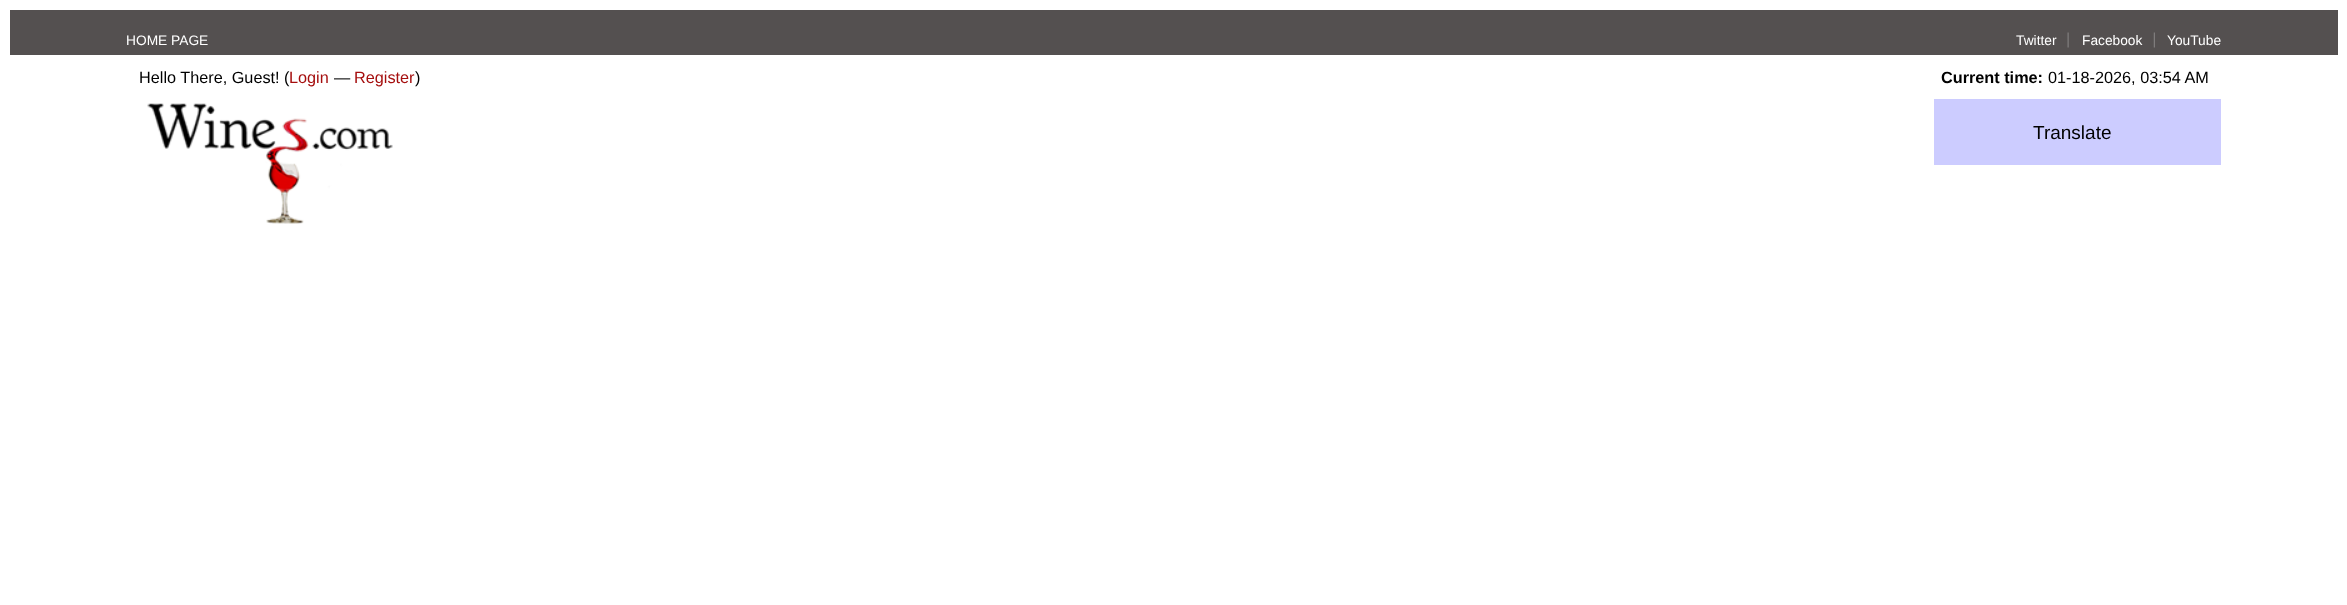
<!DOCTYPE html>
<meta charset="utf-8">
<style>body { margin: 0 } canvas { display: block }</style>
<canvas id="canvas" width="2347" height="605"></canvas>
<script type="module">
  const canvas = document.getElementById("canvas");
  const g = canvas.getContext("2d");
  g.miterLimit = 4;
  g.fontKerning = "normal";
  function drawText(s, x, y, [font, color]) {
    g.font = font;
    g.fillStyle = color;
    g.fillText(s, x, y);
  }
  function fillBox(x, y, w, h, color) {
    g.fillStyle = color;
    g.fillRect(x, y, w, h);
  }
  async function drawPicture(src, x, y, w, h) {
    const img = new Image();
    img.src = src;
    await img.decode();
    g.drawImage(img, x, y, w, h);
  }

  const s1 = ["13.75px Liberation Sans", "#FFFFFF"];
  const s2 = ["16.25px Liberation Sans", "#000000"];
  const s3 = ["16.25px Liberation Sans", "#A50E0E"];
  const s4 = ["bold 16.25px Liberation Sans", "#000000"];
  const s5 = ["19px Liberation Sans", "#000000"];

  fillBox(0, 0, 2347, 605, "#FFFFFF");
  fillBox(10, 10, 2328, 45, "#545050");
  drawText("HOME PAGE", 126, 45, s1);
  drawText("Twitter", 2016, 45, s1);
  await drawPicture("pic1.png", 2067, 32, 2, 16);
  drawText("Facebook", 2082, 45, s1);
  await drawPicture("pic2.png", 2153, 32, 2, 16);
  drawText("YouTube", 2167, 45, s1);
  drawText("Hello There, Guest! (", 139, 83, s2);
  drawText("Login", 289, 83, s3);
  drawText("—", 334, 83, s2);
  drawText("Register", 354, 83, s3);
  drawText(")", 415, 83, s2);
  drawText("Current time:", 1941, 83, s4);
  drawText("01-18-2026, 03:54 AM", 2048, 83, s2);
  await drawPicture("pic3.png", 147, 103, 246, 121);
  fillBox(1934, 99, 287, 66, "#CCCCFF");
  drawText("Translate", 2033, 139, s5);
</script>
